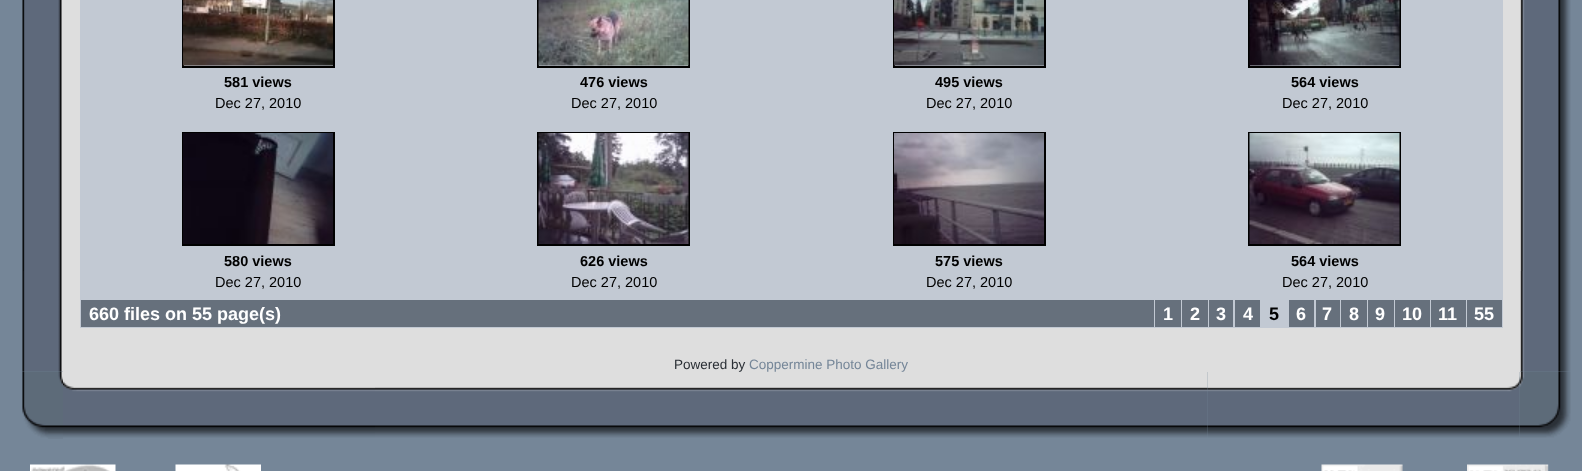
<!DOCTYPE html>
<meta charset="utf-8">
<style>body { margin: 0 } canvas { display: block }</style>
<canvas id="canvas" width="1582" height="471"></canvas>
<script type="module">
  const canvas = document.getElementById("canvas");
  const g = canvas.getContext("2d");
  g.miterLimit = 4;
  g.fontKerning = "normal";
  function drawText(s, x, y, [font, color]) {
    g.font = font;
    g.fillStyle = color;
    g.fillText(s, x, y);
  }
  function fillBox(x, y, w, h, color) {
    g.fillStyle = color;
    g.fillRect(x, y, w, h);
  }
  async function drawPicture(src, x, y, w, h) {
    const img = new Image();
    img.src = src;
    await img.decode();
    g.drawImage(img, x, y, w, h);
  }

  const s1 = ["bold 14.5px Liberation Sans", "#000000"];
  const s2 = ["14.5px Liberation Sans", "#000000"];
  const s3 = ["bold 18px Liberation Sans", "#FFFFFF"];
  const s4 = ["bold 18px Liberation Sans", "#000000"];
  const s5 = ["13.5px Liberation Sans", "#292E34"];
  const s6 = ["13.5px Liberation Sans", "#758698"];

  fillBox(0, 0, 1582, 471, "#758698");
  await drawPicture("pic1.png", 22, 0, 41, 372);
  fillBox(23, 0, 1, 271, "#0B0D0F");
  fillBox(63, 0, 1457, 372, "#DEDEDE");
  fillBox(80, 0, 1423, 328, "#C2C9D3");
  g.strokeStyle = "#000000";
  g.lineWidth = 2;
  g.strokeRect(183, -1, 151, 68);
  await drawPicture("pic2.png", 183, 0, 150, 66);
  drawText("581 views", 224, 87, s1);
  drawText("Dec 27, 2010", 215, 108, s2);
  g.strokeRect(538, -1, 151, 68);
  await drawPicture("pic3.png", 538, 0, 151, 66);
  drawText("476 views", 580, 87, s1);
  drawText("Dec 27, 2010", 571, 108, s2);
  g.strokeRect(894, -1, 151, 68);
  await drawPicture("pic4.png", 894, 0, 150, 66);
  drawText("495 views", 935, 87, s1);
  drawText("Dec 27, 2010", 926, 108, s2);
  g.strokeRect(1249, -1, 151, 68);
  await drawPicture("pic5.png", 1249, 0, 151, 66);
  drawText("564 views", 1291, 87, s1);
  drawText("Dec 27, 2010", 1282, 108, s2);
  g.strokeRect(183, 133, 151, 112);
  await drawPicture("pic6.png", 183, 133, 150, 111);
  drawText("580 views", 224, 266, s1);
  drawText("Dec 27, 2010", 215, 287, s2);
  g.strokeRect(538, 133, 151, 112);
  await drawPicture("pic7.png", 538, 133, 151, 111);
  drawText("626 views", 580, 266, s1);
  drawText("Dec 27, 2010", 571, 287, s2);
  g.strokeRect(894, 133, 151, 112);
  await drawPicture("pic8.png", 894, 133, 150, 111);
  drawText("575 views", 935, 266, s1);
  drawText("Dec 27, 2010", 926, 287, s2);
  g.strokeRect(1249, 133, 151, 112);
  await drawPicture("pic9.png", 1249, 133, 151, 111);
  drawText("564 views", 1291, 266, s1);
  drawText("Dec 27, 2010", 1282, 287, s2);
  fillBox(81, 300, 1073, 27, "#66707C");
  drawText("660 files on 55 page(s)", 89, 320, s3);
  fillBox(1155, 300, 26, 27, "#66707C");
  drawText("1", 1163, 320, s3);
  fillBox(1182, 300, 26, 27, "#66707C");
  drawText("2", 1190, 320, s3);
  fillBox(1209, 300, 24, 27, "#66707C");
  drawText("3", 1216, 320, s3);
  fillBox(1235, 300, 25, 27, "#66707C");
  drawText("4", 1243, 320, s3);
  drawText("5", 1269, 320, s4);
  fillBox(1289, 300, 25, 27, "#66707C");
  drawText("6", 1296, 320, s3);
  fillBox(1316, 300, 24, 27, "#66707C");
  drawText("7", 1322, 320, s3);
  fillBox(1341, 300, 26, 27, "#66707C");
  drawText("8", 1349, 320, s3);
  fillBox(1368, 300, 26, 27, "#66707C");
  drawText("9", 1375, 320, s3);
  fillBox(1395, 300, 35, 27, "#66707C");
  drawText("10", 1402, 320, s3);
  fillBox(1431, 300, 35, 27, "#66707C");
  drawText("11", 1438, 320, s3);
  fillBox(1467, 300, 35, 27, "#66707C");
  drawText("55", 1474, 320, s3);
  drawText("Powered by", 674, 369, s5);
  drawText("Coppermine Photo Gallery", 749, 369, s6);
  await drawPicture("pic10.png", 1520, 0, 51, 372);
  await drawPicture("pic11.png", 1520, 0, 4, 271);
  await drawPicture("pic12.png", 22, 371, 41, 68);
  await drawPicture("pic13.png", 63, 372, 312, 66);
  await drawPicture("pic14.png", 375, 372, 833, 66);
  await drawPicture("pic15.png", 1207, 372, 313, 66);
  await drawPicture("pic16.png", 1519, 371, 52, 67);
  await drawPicture("pic17.png", 30, 464, 86, 7);
  await drawPicture("pic18.png", 175, 464, 86, 7);
  await drawPicture("pic19.png", 1321, 464, 82, 7);
  await drawPicture("pic20.png", 1467, 464, 82, 7);
</script>
